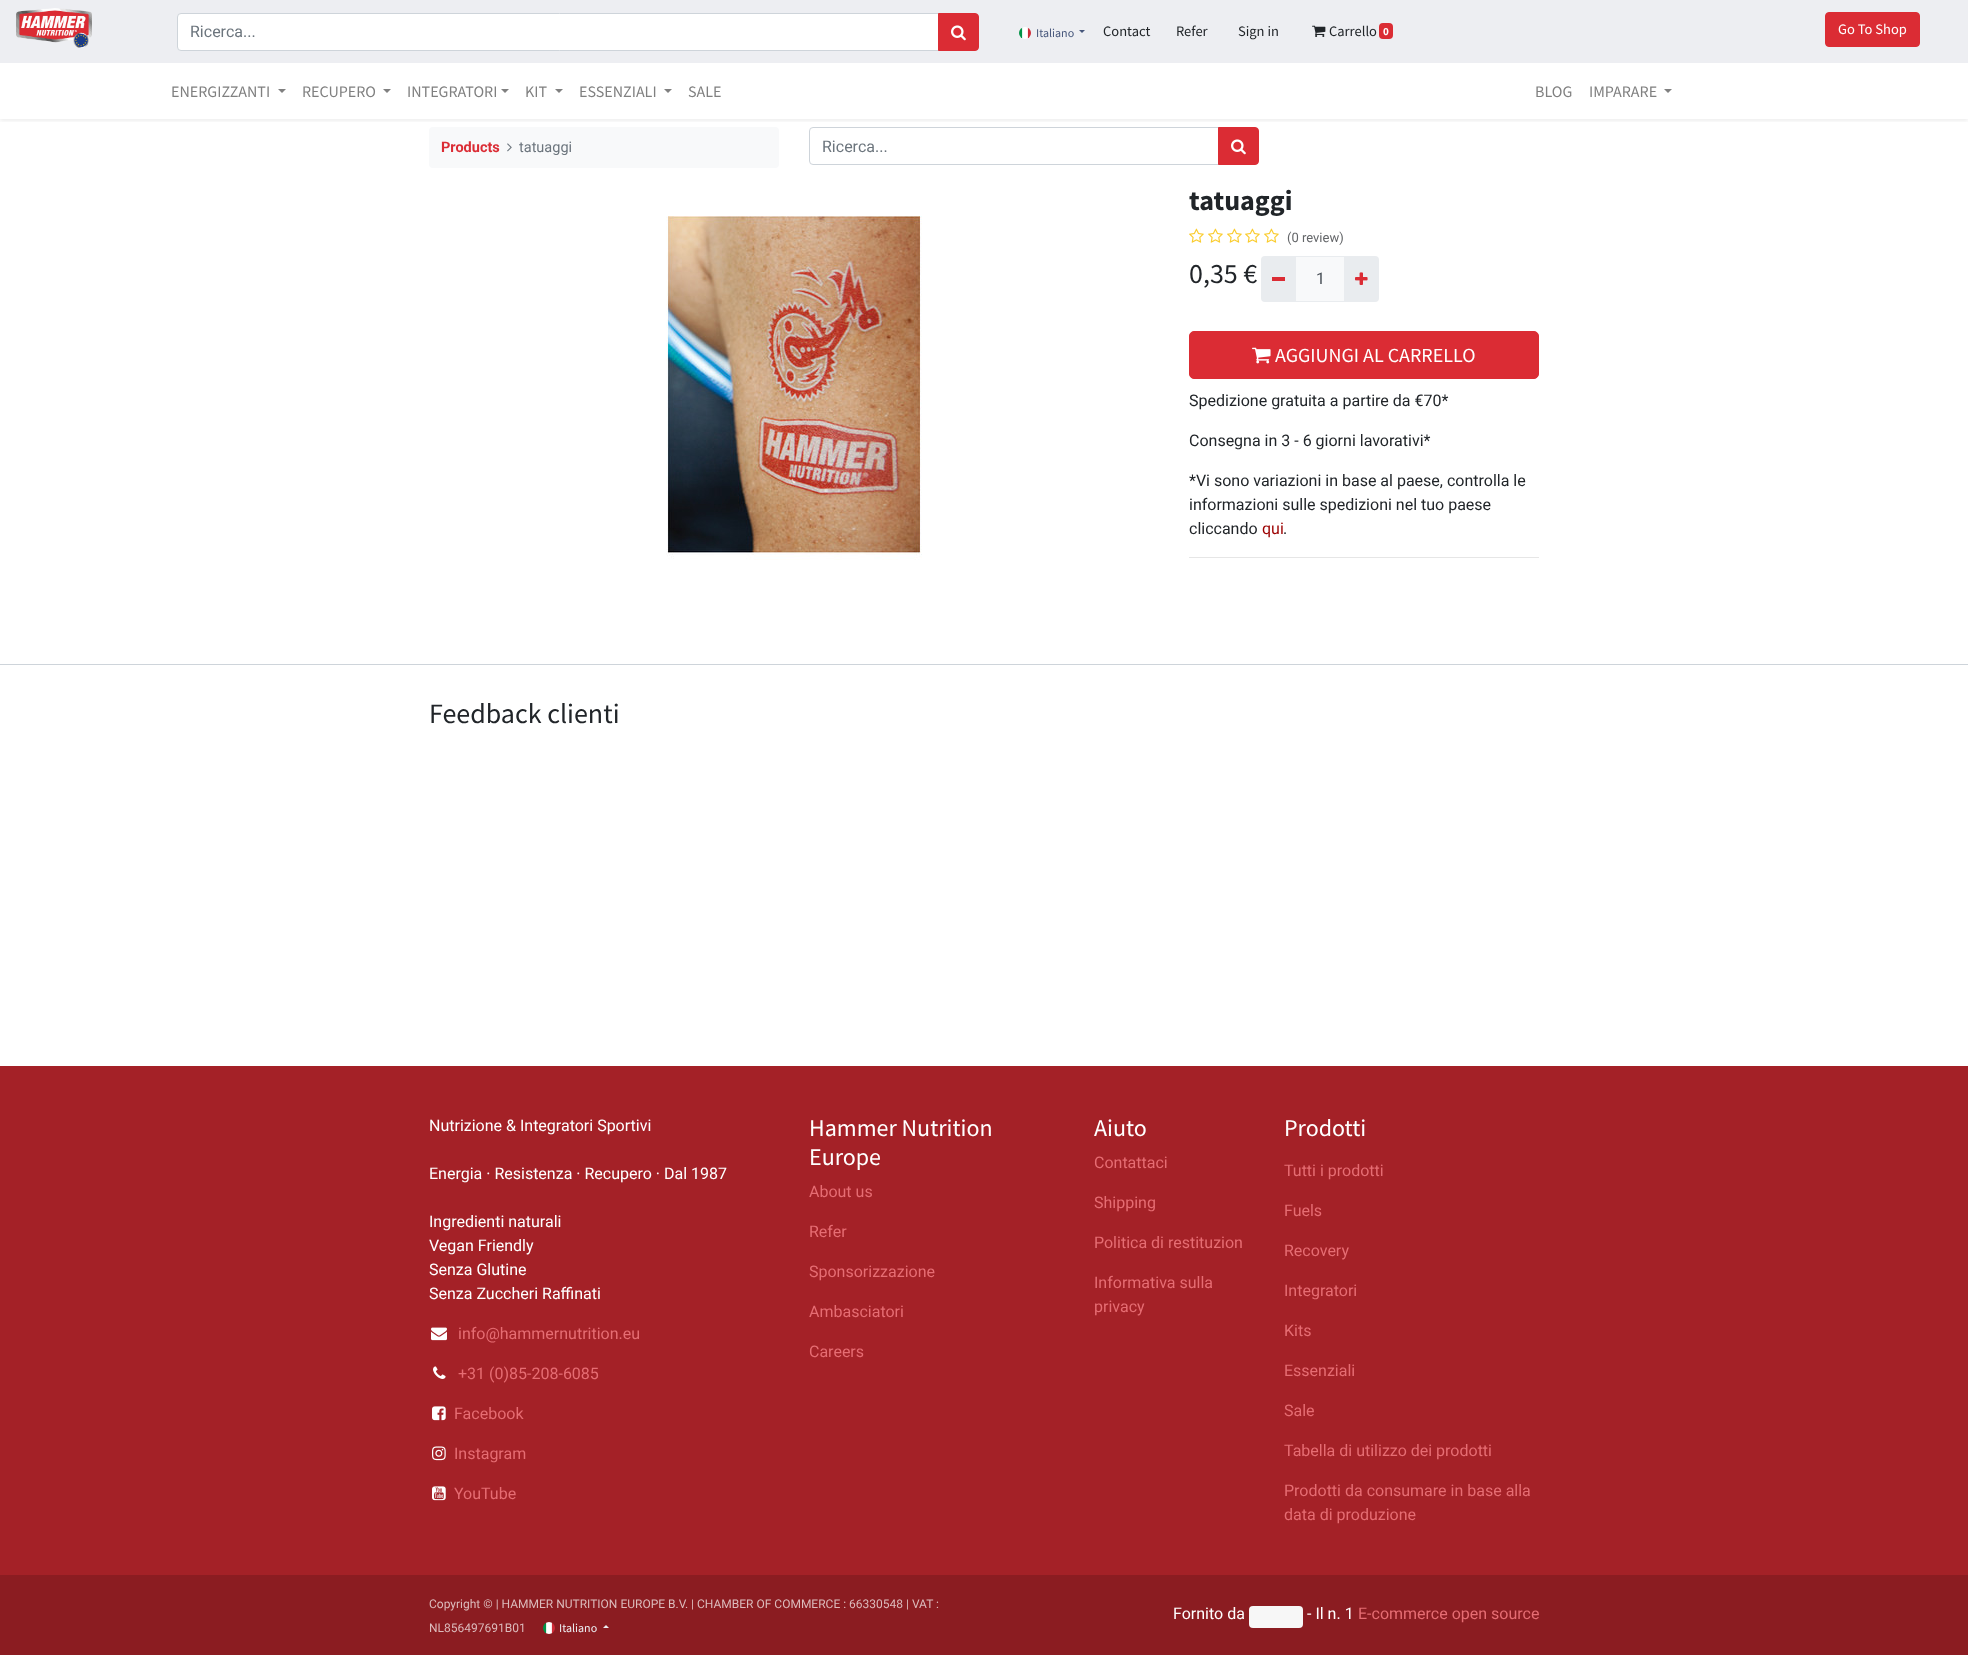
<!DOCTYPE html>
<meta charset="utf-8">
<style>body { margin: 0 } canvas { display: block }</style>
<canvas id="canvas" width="1968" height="1655"></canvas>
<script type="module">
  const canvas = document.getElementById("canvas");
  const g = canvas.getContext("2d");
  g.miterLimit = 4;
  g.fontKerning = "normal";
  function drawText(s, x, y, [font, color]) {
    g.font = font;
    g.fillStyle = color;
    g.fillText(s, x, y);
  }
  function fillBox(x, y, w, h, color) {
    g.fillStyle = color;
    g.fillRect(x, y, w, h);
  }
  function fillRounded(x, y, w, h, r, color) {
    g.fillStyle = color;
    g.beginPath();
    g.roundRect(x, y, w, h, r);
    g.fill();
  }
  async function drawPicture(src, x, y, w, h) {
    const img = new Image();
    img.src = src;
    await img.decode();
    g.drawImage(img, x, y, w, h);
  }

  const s1 = ["16px Roboto", "#6C757D"];
  const s2 = ["12px Source Sans Pro", "#46567B"];
  const s3 = ["14.5px Source Sans Pro", "#212529"];
  const s4 = ["bold 11px Source Sans Pro", "#FFFFFF"];
  const s5 = ["14.5px Source Sans Pro", "#FFFFFF"];
  const s6 = ["16px Source Sans Pro", "#808080"];
  const s7 = ["bold 14.5px Roboto", "#DB2C34"];
  const s8 = ["14.5px Roboto", "#6C757D"];
  const s9 = ["bold 28px Source Sans Pro", "#212529"];
  const s10 = ["13px Roboto", "#646669"];
  const s11 = ["28px Source Sans Pro", "#212529"];
  const s12 = ["16px Roboto", "#495057"];
  const s13 = ["20px Source Sans Pro", "#FFFFFF"];
  const s14 = ["16px Roboto", "#212529"];
  const s15 = ["16px Roboto", "#9C0000"];
  const s16 = ["16px Roboto", "#FFFFFF"];
  const s17 = ["16px Roboto", "#E66D73"];
  const s18 = ["24px Source Sans Pro", "#FFFFFF"];
  const s19 = ["12px Roboto", "#DCBBBC"];
  const s20 = ["12px Source Sans Pro", "#EDEEF2"];

  fillBox(0, 0, 1968, 1655, "#FFFFFF");
  fillBox(0, 0, 1968, 63, "#EDEEF2");
  await drawPicture("pic1.png", 16, 8, 76, 40);
  g.fillStyle = "#FFFFFF";
  g.beginPath();
  g.roundRect(177.5, 13.5, 761, 37, [3.5, 0, 0, 3.5]);
  g.fill();
  g.strokeStyle = "#CED4DA";
  g.stroke();
  drawText("Ricerca...", 190, 37, s1);
  g.fillStyle = "#DB2C34";
  g.beginPath();
  g.roundRect(938.5, 13.5, 40, 37, [0, 3.5, 3.5, 0]);
  g.fill();
  g.strokeStyle = "#DB2C34";
  g.stroke();
  await drawPicture("pic2.png", 951, 25, 15, 16);
  await drawPicture("pic3.png", 1019, 27, 12, 12);
  drawText("Italiano", 1036, 37, s2);
  g.beginPath();
  g.moveTo(1079, 30);
  g.lineTo(1085, 30);
  g.lineTo(1082, 33);
  g.closePath();
  g.fill();
  drawText("Contact", 1103, 36, s3);
  drawText("Refer", 1176, 36, s3);
  drawText("Sign in", 1238, 36, s3);
  await drawPicture("pic4.png", 1312, 25, 14, 12);
  drawText("Carrello", 1329, 36, s3);
  fillRounded(1379, 23, 14, 16, 4, "#DB2C34");
  drawText("0", 1383, 35, s4);
  g.fillStyle = "#DB2C34";
  g.beginPath();
  g.roundRect(1825.5, 12.5, 94, 34, 3.5);
  g.fill();
  g.stroke();
  drawText("Go To Shop", 1838, 34, s5);
  fillRounded(429, 127, 350, 41, 4, "#F8F9FA");
  g.beginPath();
  g.roundRect(809.5, 127.5, 409, 37, [3.5, 0, 0, 3.5]);
  g.strokeStyle = "#CED4DA";
  g.stroke();
  g.fillStyle = "#DB2C34";
  g.beginPath();
  g.roundRect(1218.5, 127.5, 40, 37, [0, 3.5, 3.5, 0]);
  g.fill();
  g.strokeStyle = "#DB2C34";
  g.stroke();
  g.save();
  g.beginPath();
  g.rect(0, 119, 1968, 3);
  g.clip();
  g.fillStyle = "rgba(0, 0, 0, 0.07)";
  g.filter = "blur(2px)";
  g.beginPath();
  g.rect(0, 65, 1968, 56);
  g.fill();
  g.filter = "none";
  g.restore();
  drawText("ENERGIZZANTI", 171, 97, s6);
  g.beginPath();
  g.moveTo(278, 89);
  g.lineTo(286, 89);
  g.lineTo(282, 93);
  g.closePath();
  g.fill();
  drawText("RECUPERO", 302, 97, s6);
  g.beginPath();
  g.moveTo(383, 89);
  g.lineTo(391, 89);
  g.lineTo(387, 93);
  g.closePath();
  g.fill();
  drawText("INTEGRATORI", 407, 97, s6);
  g.beginPath();
  g.moveTo(501, 89);
  g.lineTo(509, 89);
  g.lineTo(505, 93);
  g.closePath();
  g.fill();
  drawText("KIT", 525, 97, s6);
  g.beginPath();
  g.moveTo(555, 89);
  g.lineTo(563, 89);
  g.lineTo(559, 93);
  g.closePath();
  g.fill();
  drawText("ESSENZIALI", 579, 97, s6);
  g.beginPath();
  g.moveTo(664, 89);
  g.lineTo(672, 89);
  g.lineTo(668, 93);
  g.closePath();
  g.fill();
  drawText("SALE", 688, 97, s6);
  drawText("BLOG", 1535, 97, s6);
  drawText("IMPARARE", 1589, 97, s6);
  g.beginPath();
  g.moveTo(1664, 89);
  g.lineTo(1672, 89);
  g.lineTo(1668, 93);
  g.closePath();
  g.fill();
  drawText("Products", 441, 152, s7);
  await drawPicture("pic5.png", 507, 143, 5, 9);
  drawText("tatuaggi", 519, 152, s8);
  drawText("Ricerca...", 822, 152, s1);
  await drawPicture("pic2.png", 1231, 139, 15, 16);
  await drawPicture("pic6.png", 666, 216, 256, 344);
  drawText("tatuaggi", 1189, 210, s9);
  await drawPicture("pic7.png", 1189, 228, 15, 15);
  await drawPicture("pic7.png", 1208, 228, 15, 15);
  await drawPicture("pic7.png", 1227, 228, 15, 15);
  await drawPicture("pic7.png", 1245, 228, 15, 15);
  await drawPicture("pic7.png", 1264, 228, 15, 15);
  drawText("(0 review)", 1287, 242, s10);
  drawText("0,35 €", 1189, 283, s11);
  g.fillStyle = "#F8F9FA";
  g.beginPath();
  g.rect(1295.5, 256.5, 49, 45);
  g.fill();
  g.strokeStyle = "#E9ECEF";
  g.stroke();
  g.fillStyle = "#E9ECEF";
  g.beginPath();
  g.roundRect(1261, 256, 35, 46, [4, 0, 0, 4]);
  g.fill();
  fillBox(1272, 277, 13, 4, "#DB2C34");
  drawText("1", 1316, 284, s12);
  g.fillStyle = "#E9ECEF";
  g.beginPath();
  g.roundRect(1344, 256, 35, 46, [0, 4, 4, 0]);
  g.fill();
  await drawPicture("pic8.png", 1355, 272, 13, 13);
  g.fillStyle = "#DB2C34";
  g.beginPath();
  g.roundRect(1189.5, 331.5, 349, 47, 4.5);
  g.fill();
  g.strokeStyle = "#DB2C34";
  g.stroke();
  await drawPicture("pic9.png", 1252, 347, 19, 17);
  drawText("AGGIUNGI AL CARRELLO", 1275, 362, s13);
  drawText("Spedizione gratuita a partire da €70*", 1189, 406, s14);
  drawText("Consegna in 3 - 6 giorni lavorativi*", 1189, 446, s14);
  drawText("*Vi sono variazioni in base al paese, controlla le", 1189, 486, s14);
  drawText("informazioni sulle spedizioni nel tuo paese", 1189, 510, s14);
  drawText("cliccando", 1189, 534, s14);
  drawText("qui", 1262, 534, s15);
  drawText(".", 1283, 534, s14);
  fillBox(1189, 557, 350, 1, "#E6E6E6");
  fillBox(0, 664, 1968, 1, "#CED4DA");
  drawText("Feedback clienti", 429, 723, s11);
  fillBox(0, 1066, 1968, 509, "#A42127");
  drawText("Nutrizione & Integratori Sportivi", 429, 1131, s16);
  drawText("Energia · Resistenza · Recupero · Dal 1987", 429, 1179, s16);
  drawText("Ingredienti naturali", 429, 1227, s16);
  drawText("Vegan Friendly", 429, 1251, s16);
  drawText("Senza Glutine", 429, 1275, s16);
  drawText("Senza Zuccheri Raffinati", 429, 1299, s16);
  await drawPicture("pic10.png", 431, 1327, 16, 14);
  drawText("info@hammernutrition.eu", 458, 1339, s17);
  await drawPicture("pic11.png", 433, 1366, 13, 13);
  drawText("+31 (0)85-208-6085", 458, 1379, s17);
  await drawPicture("pic12.png", 432, 1406, 14, 15);
  drawText("Facebook", 454, 1419, s17);
  await drawPicture("pic13.png", 432, 1446, 14, 15);
  drawText("Instagram", 454, 1459, s17);
  await drawPicture("pic14.png", 432, 1486, 14, 15);
  drawText("YouTube", 454, 1499, s17);
  drawText("Hammer Nutrition", 809, 1136, s18);
  drawText("Europe", 809, 1165, s18);
  drawText("About us", 809, 1197, s17);
  drawText("Refer", 809, 1237, s17);
  drawText("Sponsorizzazione", 809, 1277, s17);
  drawText("Ambasciatori", 809, 1317, s17);
  drawText("Careers", 809, 1357, s17);
  drawText("Aiuto", 1094, 1136, s18);
  drawText("Contattaci", 1094, 1168, s17);
  drawText("Shipping", 1094, 1208, s17);
  drawText("Politica di restituzion", 1094, 1248, s17);
  drawText("Informativa sulla", 1094, 1288, s17);
  drawText("privacy", 1094, 1312, s17);
  drawText("Prodotti", 1284, 1136, s18);
  drawText("Tutti i prodotti", 1284, 1176, s17);
  drawText("Fuels", 1284, 1216, s17);
  drawText("Recovery", 1284, 1256, s17);
  drawText("Integratori", 1284, 1296, s17);
  drawText("Kits", 1284, 1336, s17);
  drawText("Essenziali", 1284, 1376, s17);
  drawText("Sale", 1284, 1416, s17);
  drawText("Tabella di utilizzo dei prodotti", 1284, 1456, s17);
  drawText("Prodotti da consumare in base alla", 1284, 1496, s17);
  drawText("data di produzione", 1284, 1520, s17);
  fillBox(0, 1575, 1968, 80, "#8B1C21");
  drawText("Copyright © | HAMMER NUTRITION EUROPE B.V. | CHAMBER OF COMMERCE : 66330548 | VAT :", 429, 1608, s19);
  drawText("NL856497691B01", 429, 1632, s19);
  await drawPicture("pic15.png", 543, 1622, 12, 12);
  drawText("Italiano", 559, 1632, s20);
  g.beginPath();
  g.moveTo(609, 1628);
  g.lineTo(603, 1628);
  g.lineTo(606, 1625);
  g.closePath();
  g.fill();
  drawText("Fornito da", 1173, 1619, s16);
  fillRounded(1249, 1606, 54, 22, 4, "#F7F7F7");
  drawText("- Il n. 1", 1307, 1619, s16);
  drawText("E-commerce open source", 1358, 1619, s17);
</script>
